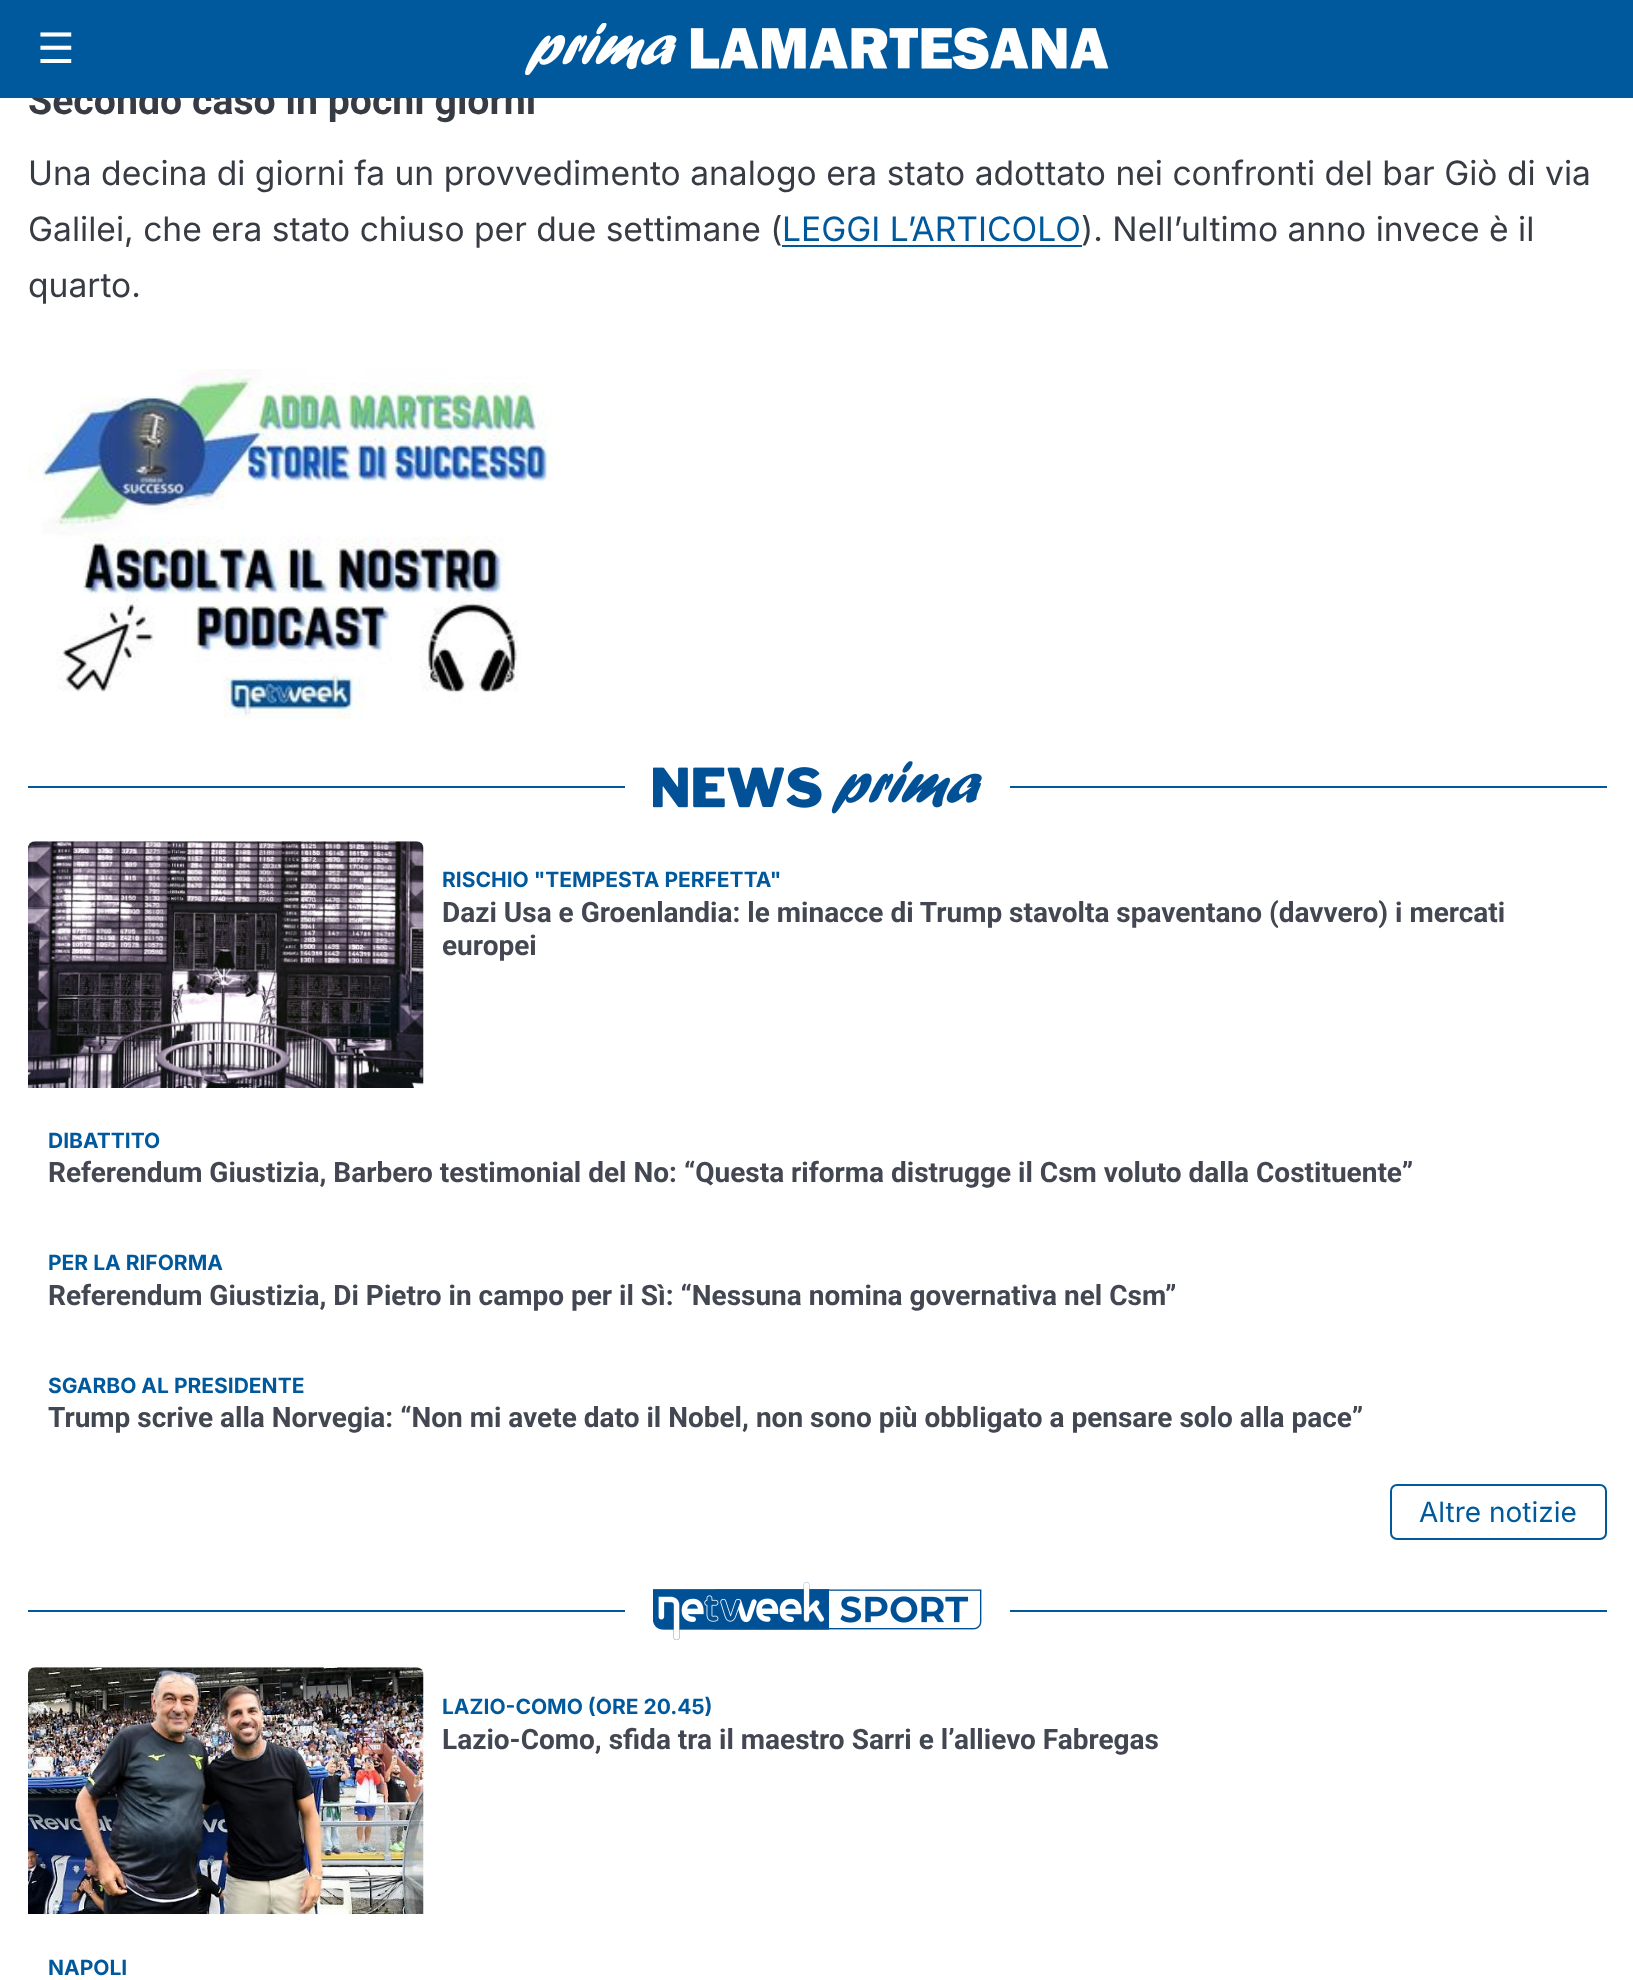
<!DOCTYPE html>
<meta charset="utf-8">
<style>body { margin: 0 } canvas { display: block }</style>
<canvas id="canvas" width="1633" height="1980"></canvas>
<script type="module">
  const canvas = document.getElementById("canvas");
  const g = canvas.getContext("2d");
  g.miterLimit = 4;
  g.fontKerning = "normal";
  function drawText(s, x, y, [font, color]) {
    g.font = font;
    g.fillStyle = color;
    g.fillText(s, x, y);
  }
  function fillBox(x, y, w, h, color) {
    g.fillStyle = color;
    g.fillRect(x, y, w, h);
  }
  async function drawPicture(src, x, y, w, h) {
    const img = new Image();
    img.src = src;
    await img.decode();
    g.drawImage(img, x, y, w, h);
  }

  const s1 = ["bold 39.25px Roboto", "#373C44"];
  const s2 = ["42px DejaVu Sans", "#FFFFFF"];
  const s3 = ["33.6px Inter", "#373C44"];
  const s4 = ["33.6px Inter", "#00599C"];
  const s5 = ["bold 21px Inter", "#00599C"];
  const s6 = ["bold 28px Roboto", "#424751"];
  const s7 = ["28px Inter", "#00599C"];

  fillBox(0, 0, 1633, 1980, "#FFFFFF");
  drawText("Secondo caso in pochi giorni", 28, 114, s1);
  fillBox(0, 0, 1633, 98, "#00599C");
  drawText("☰", 37, 63, s2);
  await drawPicture("pic1.png", 525, 23, 584, 52);
  drawText("Una decina di giorni fa un provvedimento analogo era stato adottato nei confronti del bar Giò di via", 28, 185, s3);
  drawText("Galilei, che era stato chiuso per due settimane (", 28, 241, s3);
  drawText("LEGGI L’ARTICOLO", 782, 241, s4);
  fillBox(782, 245, 300, 2, "#00599C");
  drawText("). Nell’ultimo anno invece è il", 1081, 241, s3);
  drawText("quarto.", 28, 297, s3);
  await drawPicture("pic2.png", 28, 369, 525, 350);
  fillBox(28, 786, 1579, 2, "#00599C");
  fillBox(625, 786, 385, 2, "#FFFFFF");
  await drawPicture("pic3.png", 653, 761, 329, 53);
  await drawPicture("pic4.png", 28, 841, 396, 247);
  drawText("RISCHIO \"TEMPESTA PERFETTA\"", 442, 887, s5);
  drawText("Dazi Usa e Groenlandia: le minacce di Trump stavolta spaventano (davvero) i mercati", 442, 922, s6);
  drawText("europei", 442, 955, s6);
  drawText("DIBATTITO", 48, 1148, s5);
  drawText("Referendum Giustizia, Barbero testimonial del No: “Questa riforma distrugge il Csm voluto dalla Costituente”", 48, 1182, s6);
  drawText("PER LA RIFORMA", 48, 1270, s5);
  drawText("Referendum Giustizia, Di Pietro in campo per il Sì: “Nessuna nomina governativa nel Csm”", 48, 1305, s6);
  drawText("SGARBO AL PRESIDENTE", 48, 1393, s5);
  drawText("Trump scrive alla Norvegia: “Non mi avete dato il Nobel, non sono più obbligato a pensare solo alla pace”", 48, 1427, s6);
  g.beginPath();
  g.roundRect(1391, 1485, 215, 54, 6);
  g.strokeStyle = "#00599C";
  g.lineWidth = 2;
  g.stroke();
  drawText("Altre notizie", 1419, 1522, s7);
  fillBox(28, 1610, 1579, 2, "#00599C");
  fillBox(625, 1610, 385, 2, "#FFFFFF");
  await drawPicture("pic5.png", 653, 1582, 329, 58);
  await drawPicture("pic6.png", 28, 1667, 396, 247);
  drawText("LAZIO-COMO (ORE 20.45)", 442, 1714, s5);
  drawText("Lazio-Como, sfida tra il maestro Sarri e l’allievo Fabregas", 442, 1749, s6);
  drawText("NAPOLI", 48, 1975, s5);
</script>
